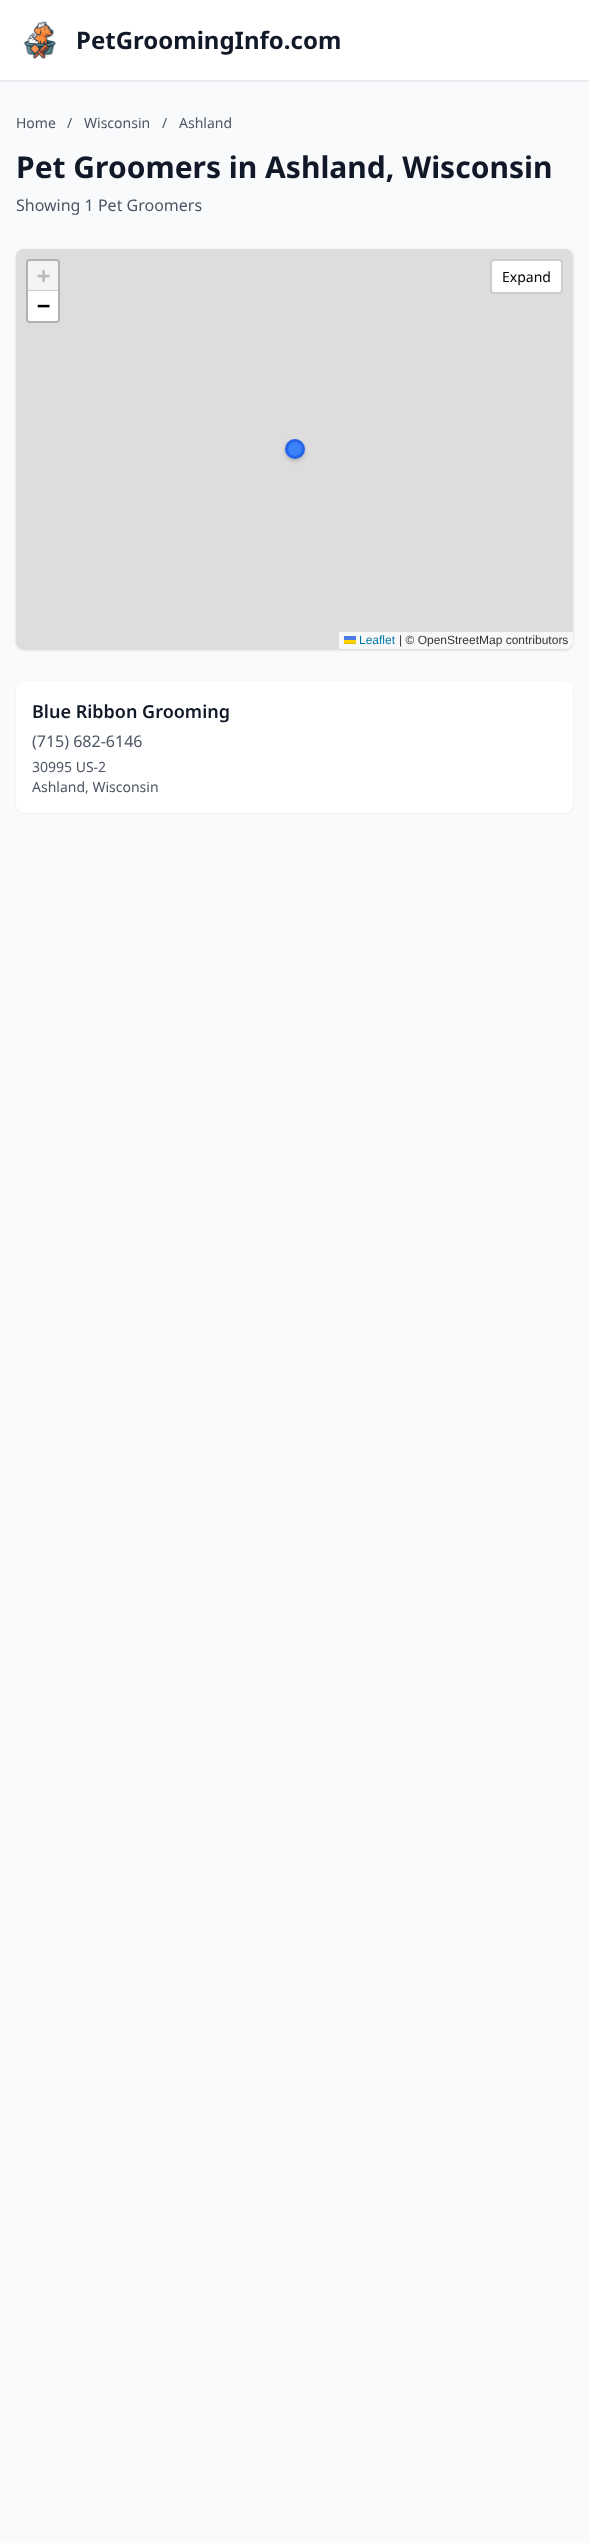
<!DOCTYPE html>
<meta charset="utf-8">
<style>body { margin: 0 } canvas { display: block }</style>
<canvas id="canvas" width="589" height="2543"></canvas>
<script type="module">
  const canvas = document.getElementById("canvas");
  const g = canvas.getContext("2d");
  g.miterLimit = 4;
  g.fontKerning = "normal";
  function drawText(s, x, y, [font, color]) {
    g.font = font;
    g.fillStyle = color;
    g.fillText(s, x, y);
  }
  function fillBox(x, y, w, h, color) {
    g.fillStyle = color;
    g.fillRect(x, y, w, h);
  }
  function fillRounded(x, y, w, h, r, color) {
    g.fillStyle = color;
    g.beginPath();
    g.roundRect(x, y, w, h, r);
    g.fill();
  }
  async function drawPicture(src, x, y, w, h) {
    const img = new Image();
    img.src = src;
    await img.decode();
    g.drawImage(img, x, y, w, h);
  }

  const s1 = ["bold 24px Noto Sans", "#111827"];
  const s2 = ["14px Noto Sans", "#4B5563"];
  const s3 = ["bold 30px Noto Sans", "#111827"];
  const s4 = ["16px Noto Sans", "#4B5563"];
  const s5 = ["bold 22px DejaVu Sans Mono", "#BBBBBB"];
  const s6 = ["bold 22px DejaVu Sans Mono", "#000000"];
  const s7 = ["12px Liberation Sans", "#0078A8"];
  const s8 = ["12px Liberation Sans", "#333333"];
  const s9 = ["14px Noto Sans", "#000000"];
  const s10 = ["600 18px Noto Sans", "#111827"];

  fillBox(0, 0, 589, 2543, "#F9FAFB");
  g.fillStyle = "rgba(0, 0, 0, 0.05)";
  g.filter = "blur(1px)";
  g.beginPath();
  g.rect(0, 1, 589, 81);
  g.fill();
  g.filter = "none";
  fillBox(0, 0, 589, 80, "#FFFFFF");
  fillBox(0, 80, 589, 1, "#E5E7EB");
  await drawPicture("pic1.png", 23, 21, 33, 38);
  drawText("PetGroomingInfo.com", 76, 49, s1);
  drawText("Home", 16, 128, s2);
  drawText("/", 67, 128, s2);
  drawText("Wisconsin", 84, 128, s2);
  drawText("/", 162, 128, s2);
  drawText("Ashland", 179, 128, s2);
  drawText("Pet Groomers in Ashland, Wisconsin", 16, 178, s3);
  drawText("Showing 1 Pet Groomers", 16, 211, s4);
  g.fillStyle = "rgba(0, 0, 0, 0.05)";
  g.filter = "blur(1px)";
  g.beginPath();
  g.roundRect(16, 250, 557, 400, 8);
  g.fill();
  g.filter = "none";
  g.fillStyle = "rgba(0, 0, 0, 0.1)";
  g.filter = "blur(1.5px)";
  g.beginPath();
  g.roundRect(16, 250, 557, 400, 8);
  g.fill();
  g.filter = "none";
  fillRounded(16, 249, 557, 400, 8, "#DDDDDD");
  g.beginPath();
  g.roundRect(27, 260, 32, 62, 3);
  g.strokeStyle = "#B1B1B1";
  g.lineWidth = 2;
  g.stroke();
  g.fillStyle = "#F4F4F4";
  g.beginPath();
  g.roundRect(28, 261, 30, 29, [2, 2, 0, 0]);
  g.fill();
  fillBox(28, 290, 30, 1, "#CCCCCC");
  drawText("+", 37, 283, s5);
  g.fillStyle = "#FFFFFF";
  g.beginPath();
  g.roundRect(28, 291, 30, 30, [0, 0, 2, 2]);
  g.fill();
  drawText("−", 37, 313, s6);
  g.fillStyle = "rgba(255, 255, 255, 0.8)";
  g.beginPath();
  g.roundRect(339, 632, 234, 17, [0, 0, 8, 0]);
  g.fill();
  drawText("Leaflet", 359, 644, s7);
  fillBox(344, 636, 12, 4, "#4C7BE1");
  fillBox(344, 640, 12, 3, "#FFD500");
  fillBox(344, 643, 12, 1, "#E0BC00");
  drawText("| © OpenStreetMap contributors", 399, 644, s8);
  g.fillStyle = "rgba(0, 0, 0, 0.2)";
  g.filter = "blur(2px)";
  g.beginPath();
  g.roundRect(285, 441, 20, 20, 10);
  g.fill();
  g.filter = "none";
  g.fillStyle = "#3B82F6";
  g.beginPath();
  g.arc(295, 449, 8.5, 0, Math.PI * 2);
  g.fill();
  g.strokeStyle = "#2563EB";
  g.lineWidth = 3;
  g.stroke();
  fillRounded(490, 259, 73, 35, 4, "#FFFFFF");
  g.beginPath();
  g.roundRect(491, 260, 71, 33, 3);
  g.strokeStyle = "rgba(0, 0, 0, 0.2)";
  g.lineWidth = 2;
  g.stroke();
  drawText("Expand", 502, 282, s9);
  g.fillStyle = "rgba(0, 0, 0, 0.05)";
  g.filter = "blur(1px)";
  g.beginPath();
  g.roundRect(16, 682, 557, 132, 8);
  g.fill();
  g.filter = "none";
  fillRounded(16, 681, 557, 132, 8, "#FFFFFF");
  drawText("Blue Ribbon Grooming", 32, 718, s10);
  drawText("(715) 682-6146", 32, 747, s4);
  drawText("30995 US-2", 32, 772, s2);
  drawText("Ashland, Wisconsin", 32, 792, s2);
</script>
